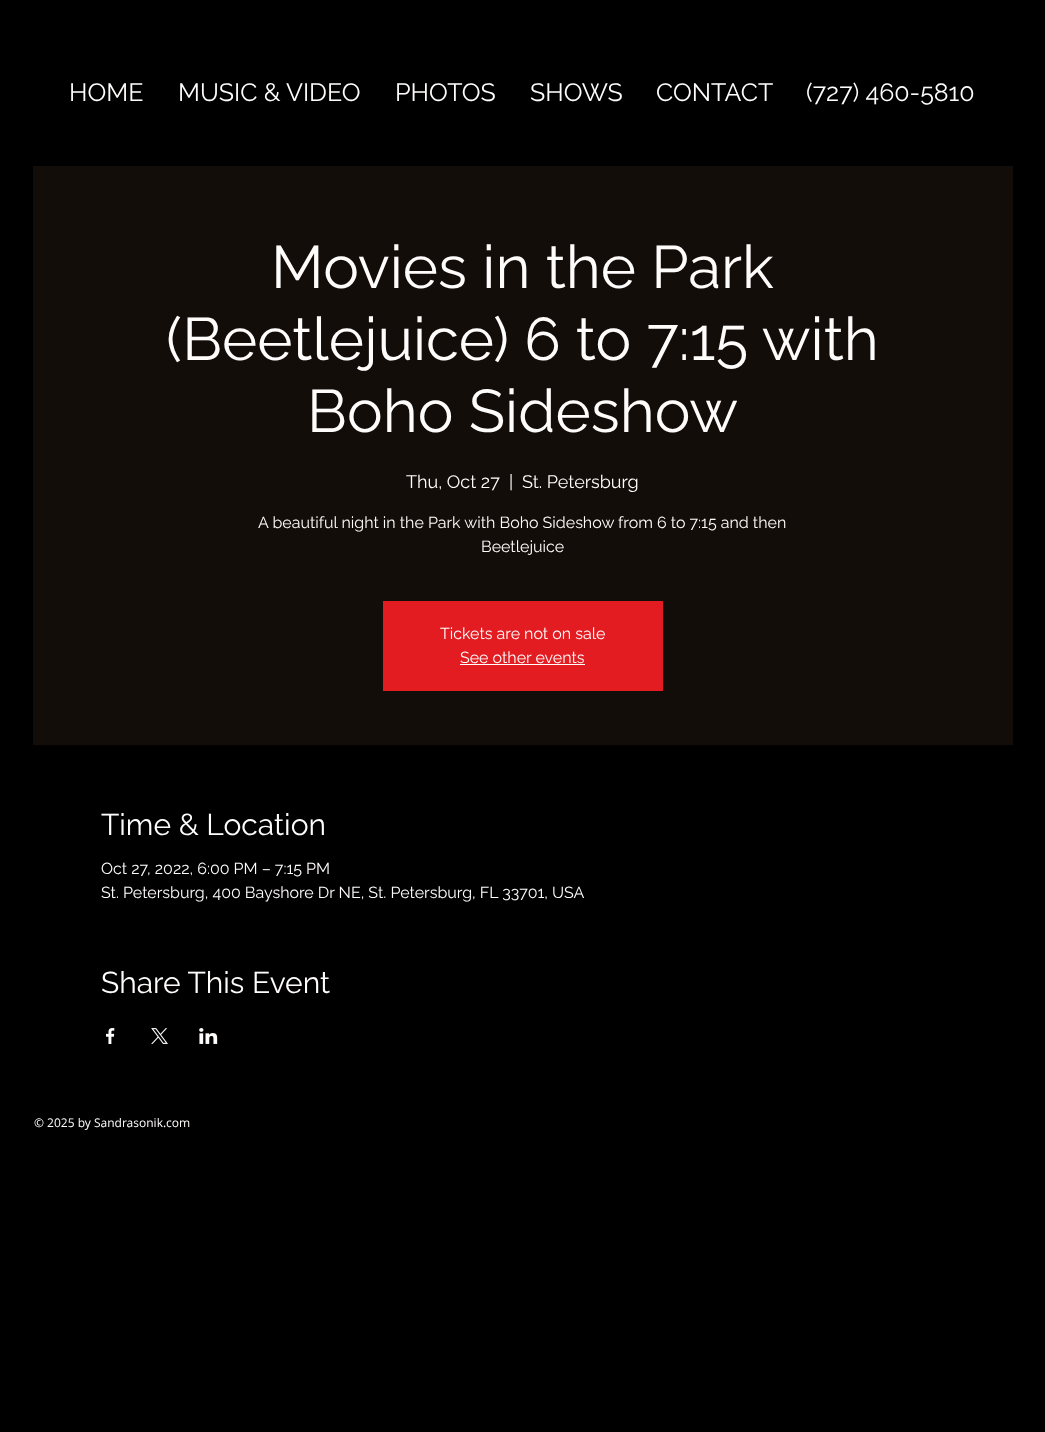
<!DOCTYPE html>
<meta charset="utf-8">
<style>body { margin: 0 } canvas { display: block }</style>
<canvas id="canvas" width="1045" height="1432"></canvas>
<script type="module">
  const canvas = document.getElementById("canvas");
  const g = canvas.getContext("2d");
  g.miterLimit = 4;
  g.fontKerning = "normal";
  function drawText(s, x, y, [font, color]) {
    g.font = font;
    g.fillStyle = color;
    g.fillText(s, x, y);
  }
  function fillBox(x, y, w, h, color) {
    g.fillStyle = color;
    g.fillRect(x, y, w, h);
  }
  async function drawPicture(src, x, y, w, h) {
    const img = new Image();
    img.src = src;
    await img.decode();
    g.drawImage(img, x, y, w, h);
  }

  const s1 = ["25px Raleway", "#FFFCFC"];
  const s2 = ["60px Raleway", "#FFFCFC"];
  const s3 = ["18px Raleway", "#FFFCFC"];
  const s4 = ["16px Raleway", "#FFFCFC"];
  const s5 = ["30px Raleway", "#FFFCFC"];
  const s6 = ["12px Open Sans", "#FFFCFC"];

  fillBox(0, 0, 1045, 1432, "#000000");
  drawText("HOME", 69, 101, s1);
  drawText("MUSIC & VIDEO", 178, 101, s1);
  drawText("PHOTOS", 395, 101, s1);
  drawText("SHOWS", 530, 101, s1);
  drawText("CONTACT", 656, 101, s1);
  drawText("(727) 460-5810", 806, 101, s1);
  fillBox(33, 166, 980, 579, "#130D09");
  drawText("Movies in the Park", 271, 288, s2);
  drawText("(Beetlejuice) 6 to 7:15 with", 166, 360, s2);
  drawText("Boho Sideshow", 307, 432, s2);
  drawText("Thu, Oct 27", 406, 488, s3);
  drawText("|", 509, 488, s3);
  drawText("St. Petersburg", 522, 488, s3);
  drawText("A beautiful night in the Park with Boho Sideshow from 6 to 7:15 and then", 258, 528, s4);
  drawText("Beetlejuice", 481, 552, s4);
  fillBox(383, 601, 280, 90, "#E21C21");
  drawText("Tickets are not on sale", 440, 639, s4);
  drawText("See other events", 460, 663, s4);
  fillBox(460, 664, 125, 1, "#FFFCFC");
  drawText("Time & Location", 101, 835, s5);
  drawText("Oct 27, 2022, 6:00 PM – 7:15 PM", 101, 874, s4);
  drawText("St. Petersburg, 400 Bayshore Dr NE, St. Petersburg, FL 33701, USA", 101, 898, s4);
  drawText("Share This Event", 101, 993, s5);
  await drawPicture("pic1.png", 106, 1028, 9, 16);
  await drawPicture("pic2.png", 151, 1028, 17, 16);
  await drawPicture("pic3.png", 199, 1028, 19, 16);
  drawText("© 2025 by Sandrasonik.com", 34, 1127, s6);
</script>
